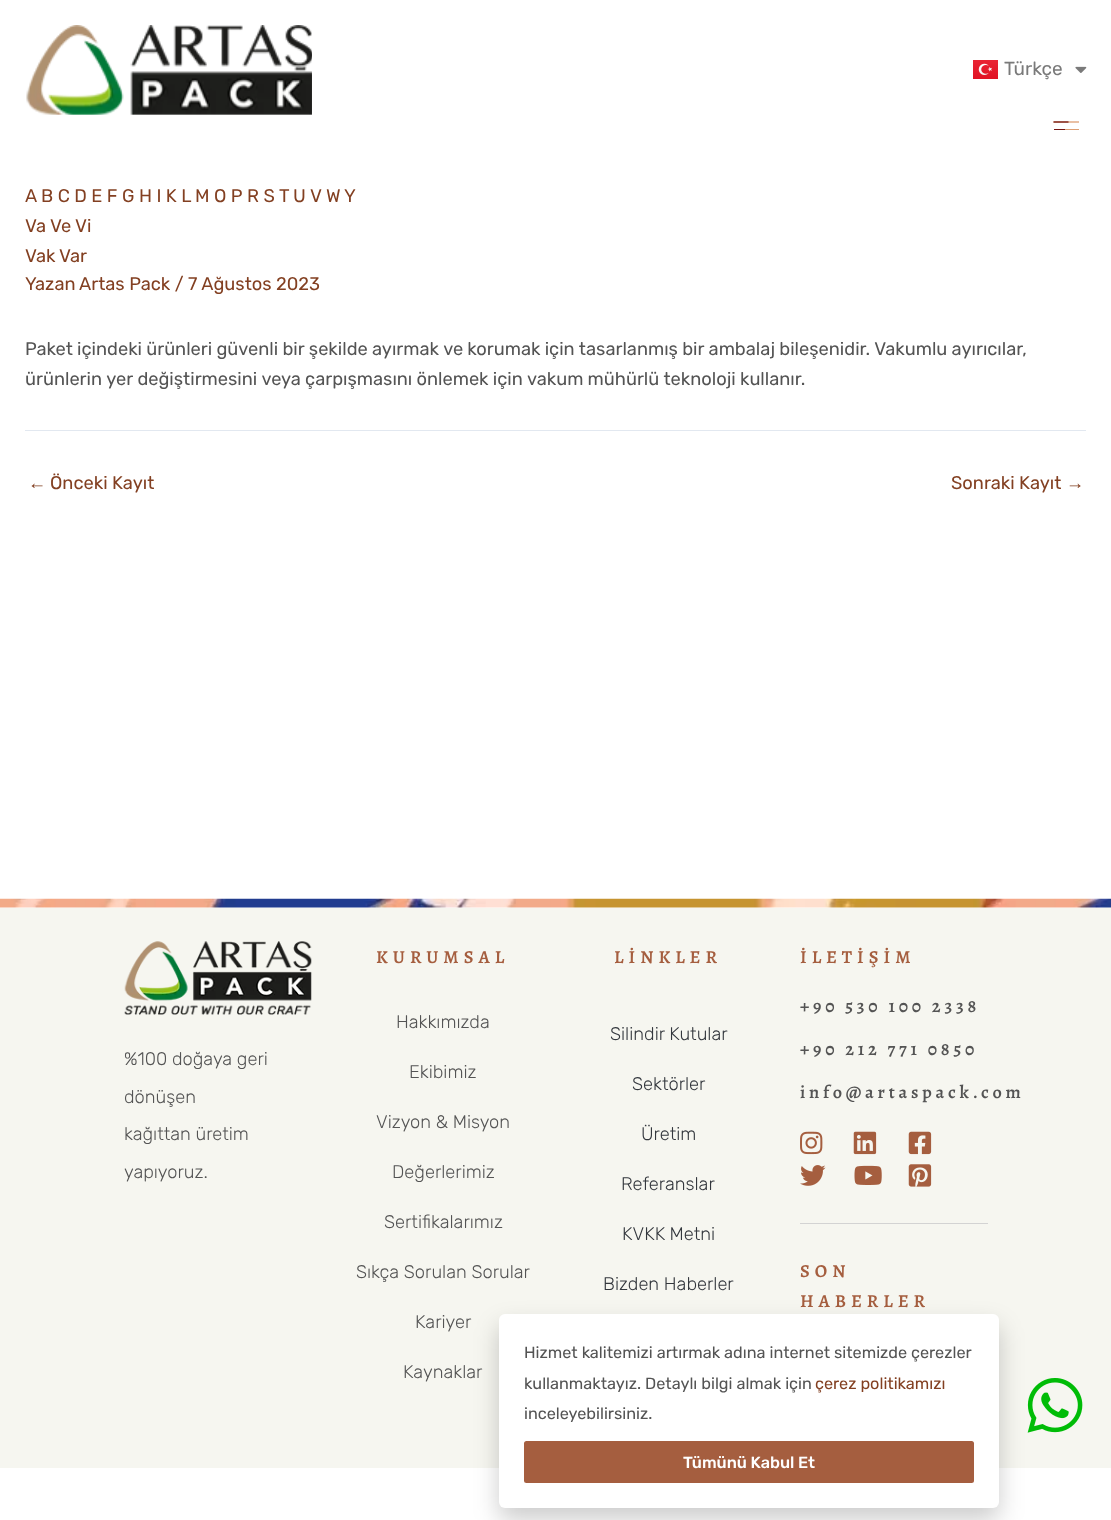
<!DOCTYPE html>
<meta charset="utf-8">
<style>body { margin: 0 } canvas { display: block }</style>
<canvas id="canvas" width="1111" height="1520"></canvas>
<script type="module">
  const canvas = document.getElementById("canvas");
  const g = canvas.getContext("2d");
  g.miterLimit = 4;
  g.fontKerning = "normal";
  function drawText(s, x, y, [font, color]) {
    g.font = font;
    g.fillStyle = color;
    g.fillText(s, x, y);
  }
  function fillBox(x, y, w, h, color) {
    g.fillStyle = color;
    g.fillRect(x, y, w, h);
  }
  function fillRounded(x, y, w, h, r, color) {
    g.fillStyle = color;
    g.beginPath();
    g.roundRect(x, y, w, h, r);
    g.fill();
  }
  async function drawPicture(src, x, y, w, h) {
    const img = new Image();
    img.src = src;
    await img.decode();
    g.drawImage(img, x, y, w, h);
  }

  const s1 = ["19px Rubik", "#7A7A7A"];
  const s2 = ["18.25px Rubik", "#834022"];
  const s3 = ["18.25px Rubik", "#545454"];
  const s4 = ["18.25px Liberation Sans", "#834022"];
  const s5 = ["300 18.25px Rubik", "#545454"];
  const s6 = ["600 18.25px Alegreya", "#A55E3F"];
  const s7 = ["300 18.25px Rubik", "#33373D"];
  const s8 = ["600 18.25px Alegreya", "#545454"];
  const s9 = ["16.25px Rubik", "#545454"];
  const s10 = ["16.25px Rubik", "#834022"];
  const s11 = ["500 16.25px Rubik", "#FFFFFF"];

  fillBox(0, 0, 1111, 1520, "#FFFFFF");
  await drawPicture("pic1.png", 26, 25, 286, 90);
  await drawPicture("pic2.png", 973, 60, 25, 19);
  drawText("Türkçe", 1004, 75, s1);
  await drawPicture("pic3.png", 1075, 66, 12, 7);
  g.beginPath();
  g.moveTo(1053.5, 122);
  g.lineTo(1079, 122);
  g.strokeStyle = "#DD9E73";
  g.lineWidth = 1.3;
  g.stroke();
  g.beginPath();
  g.moveTo(1053.5, 122);
  g.lineTo(1068.5, 122);
  g.strokeStyle = "#741613";
  g.stroke();
  fillBox(1054, 129, 11, 1, "#741613");
  fillBox(1065, 129, 14, 1, "#DD9E73");
  drawText("A", 25, 202, s2);
  drawText("B C D E F G H I K L", 41, 202, s2);
  drawText("M O P", 195, 202, s2);
  drawText("R S", 247, 202, s2);
  drawText("T", 279, 202, s2);
  drawText("U", 293, 202, s2);
  drawText("V", 310, 202, s2);
  drawText("W", 326, 202, s2);
  drawText("Y", 344, 202, s2);
  drawText("Va", 25, 232, s2);
  drawText("Ve", 50, 232, s2);
  drawText("Vi", 75, 232, s2);
  drawText("Vak", 25, 262, s2);
  drawText("Var", 59, 262, s2);
  drawText("Yazan", 25, 290, s2);
  drawText("Artas Pack / 7 Ağustos 2023", 79, 290, s2);
  g.wordSpacing = "-0.25px";
  drawText("Paket içindeki ürünleri güvenli bir şekilde ayırmak ve korumak için tasarlanmış bir ambalaj bileşenidir. Vakumlu ayırıcılar,", 25, 355, s3);
  drawText("ürünlerin yer değiştirmesini veya çarpışmasını önlemek için vakum mühürlü teknoloji kullanır.", 25, 385, s3);
  fillBox(25, 430, 1061, 1, "#E2E8F0");
  g.wordSpacing = "0px";
  drawText("←", 28, 489, s4);
  drawText("Önceki Kayıt", 50, 489, s2);
  drawText("Sonraki Kayıt", 951, 489, s2);
  drawText("→", 1066, 489, s4);
  await drawPicture("pic4.png", 0, 898, 1111, 10);
  fillBox(0, 908, 1111, 560, "#F6F6F0");
  await drawPicture("pic5.png", 124, 941, 188, 74);
  drawText("%100 doğaya geri", 124, 1065, s5);
  drawText("dönüşen", 124, 1103, s5);
  drawText("kağıttan üretim", 124, 1140, s5);
  drawText("yapıyoruz.", 124, 1178, s5);
  g.letterSpacing = "5px";
  drawText("KURUMSAL", 376, 963, s6);
  g.letterSpacing = "0px";
  drawText("Hakkımızda", 396, 1028, s5);
  drawText("Ekibimiz", 409, 1078, s5);
  drawText("Vizyon & Misyon", 376, 1128, s5);
  drawText("Değerlerimiz", 392, 1178, s5);
  drawText("Sertifikalarımız", 384, 1228, s5);
  drawText("Sıkça Sorulan Sorular", 356, 1278, s5);
  drawText("Kariyer", 415, 1328, s5);
  drawText("Kaynaklar", 403, 1378, s5);
  g.letterSpacing = "5px";
  drawText("LİNKLER", 614, 963, s6);
  g.letterSpacing = "0px";
  drawText("Silindir Kutular", 610, 1040, s7);
  drawText("Sektörler", 632, 1090, s7);
  drawText("Üretim", 641, 1140, s7);
  drawText("Referanslar", 621, 1190, s7);
  drawText("KVKK Metni", 622, 1240, s7);
  drawText("Bizden Haberler", 603, 1290, s7);
  g.letterSpacing = "5px";
  drawText("İLETİŞİM", 800, 963, s6);
  g.letterSpacing = "3.75px";
  drawText("+90 530 100 2338", 800, 1012, s8);
  drawText("+90 212 771 0850", 800, 1055, s8);
  drawText("info@artaspack.com", 800, 1098, s8);
  await drawPicture("pic6.png", 800, 1131, 23, 24);
  await drawPicture("pic7.png", 853, 1131, 24, 24);
  await drawPicture("pic8.png", 908, 1131, 24, 24);
  await drawPicture("pic9.png", 800, 1165, 26, 21);
  await drawPicture("pic10.png", 854, 1165, 28, 20);
  await drawPicture("pic11.png", 908, 1164, 24, 23);
  fillBox(800, 1223, 188, 1, "#D3D3D3");
  g.letterSpacing = "5px";
  drawText("SON", 800, 1277, s6);
  drawText("HABERLER", 800, 1307, s6);
  await drawPicture("pic12.png", 1027, 1378, 56, 55);
  g.fillStyle = "rgba(0, 0, 0, 0.2)";
  g.filter = "blur(12.5px)";
  g.beginPath();
  g.roundRect(499, 1326, 500, 194, 6);
  g.fill();
  g.filter = "none";
  fillRounded(499, 1314, 500, 194, 6, "#FFFFFF");
  g.letterSpacing = "0px";
  drawText("Hizmet kalitemizi artırmak adına internet sitemizde çerezler", 524, 1358, s9);
  drawText("kullanmaktayız. Detaylı bilgi almak için", 524, 1389, s9);
  drawText("çerez politikamızı", 815, 1389, s10);
  drawText("inceleyebilirsiniz.", 524, 1419, s9);
  fillRounded(524, 1441, 450, 42, 2.5, "#A55E3F");
  drawText("Tümünü Kabul Et", 683, 1468, s11);
</script>
